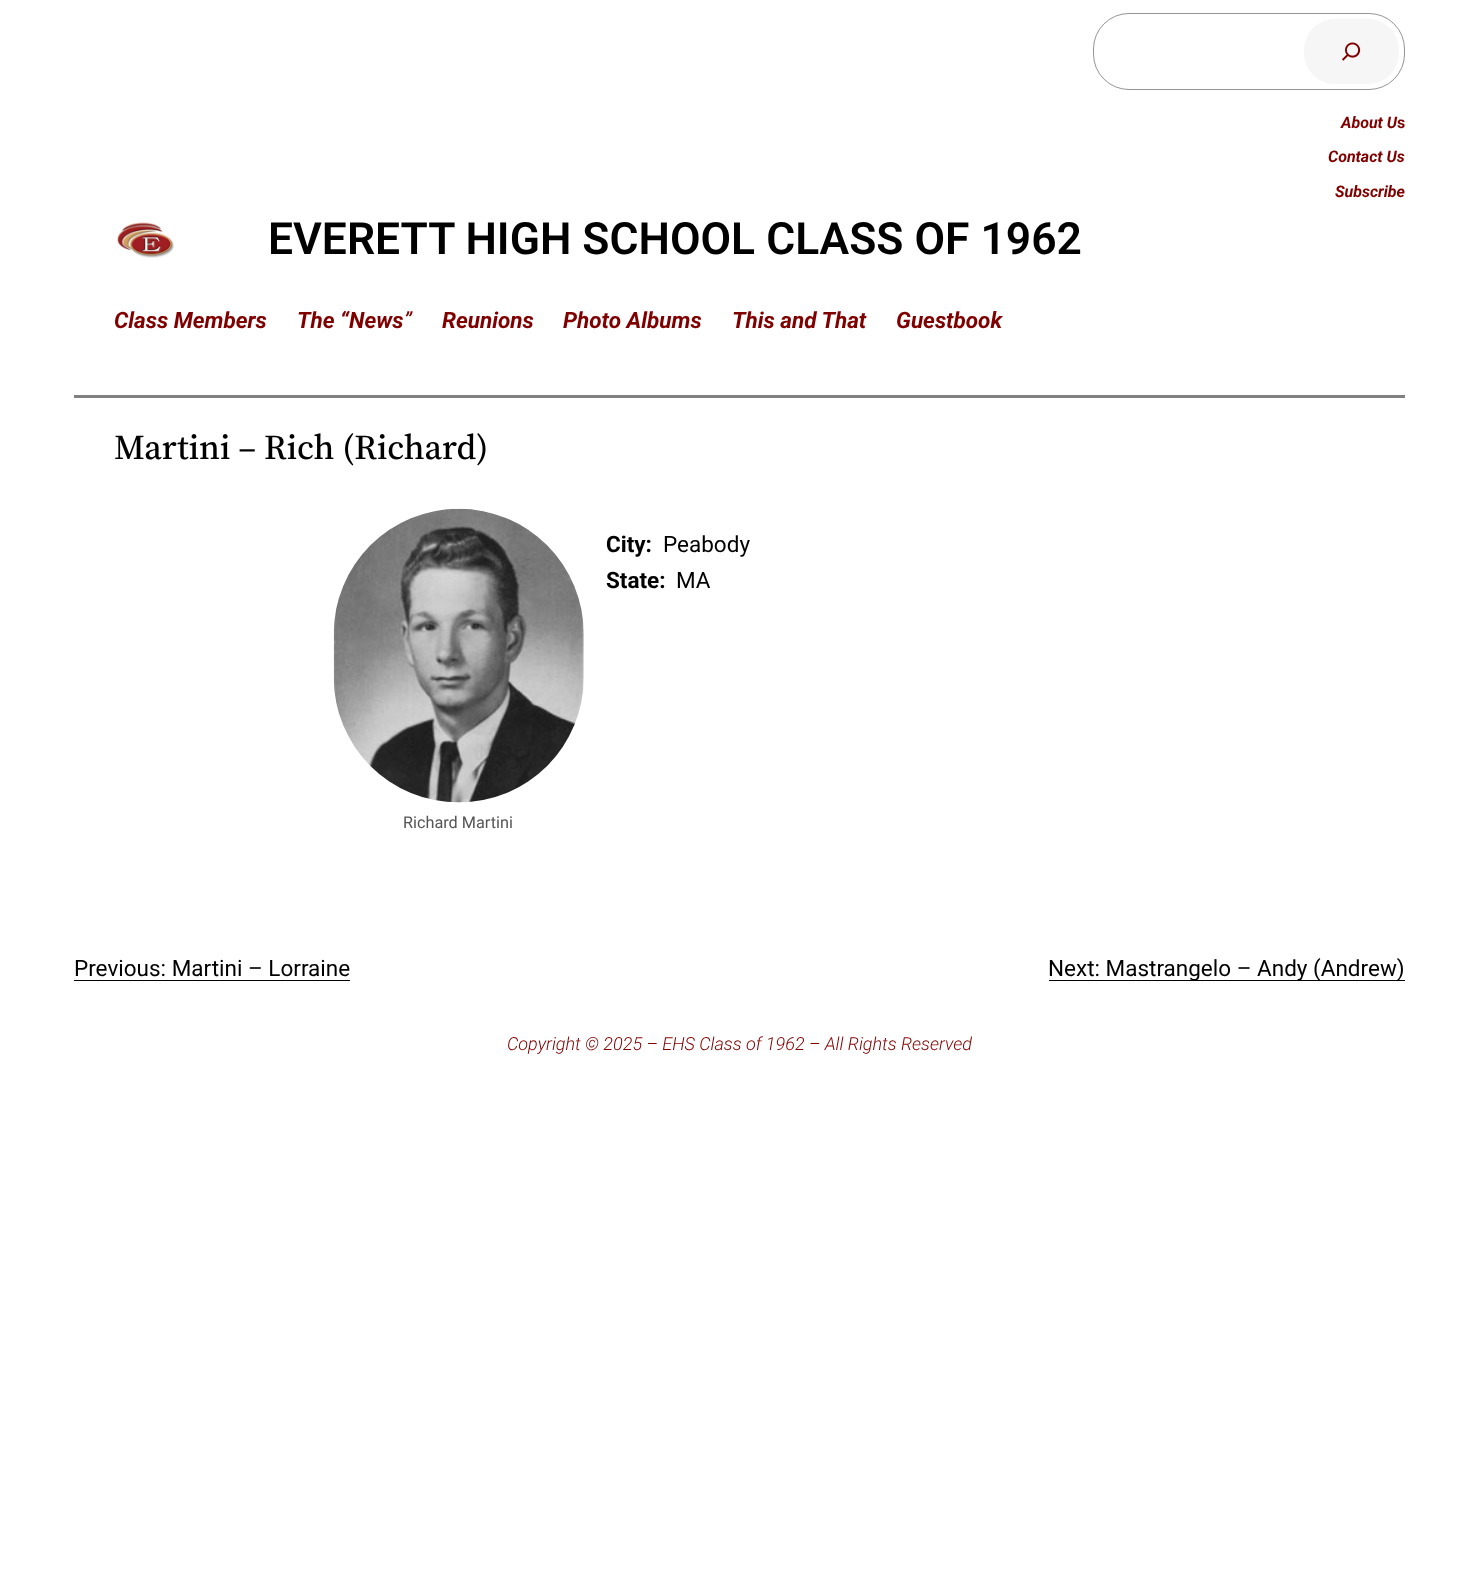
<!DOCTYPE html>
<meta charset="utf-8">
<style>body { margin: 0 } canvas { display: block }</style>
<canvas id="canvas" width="1478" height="1593"></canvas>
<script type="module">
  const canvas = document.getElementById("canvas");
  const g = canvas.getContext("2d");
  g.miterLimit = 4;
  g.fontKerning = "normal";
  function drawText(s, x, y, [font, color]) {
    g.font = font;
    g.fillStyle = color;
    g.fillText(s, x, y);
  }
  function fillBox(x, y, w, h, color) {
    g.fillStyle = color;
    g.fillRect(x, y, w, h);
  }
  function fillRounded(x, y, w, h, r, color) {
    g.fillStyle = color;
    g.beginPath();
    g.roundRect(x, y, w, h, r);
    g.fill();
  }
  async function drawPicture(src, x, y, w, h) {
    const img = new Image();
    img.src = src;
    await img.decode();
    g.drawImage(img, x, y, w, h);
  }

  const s1 = ["italic bold 16px Roboto", "#800000"];
  const s2 = ["bold 16px Roboto", "#800000"];
  const s3 = ["600 44.4px Roboto", "#000000"];
  const s4 = ["italic bold 22.5px Roboto", "#800000"];
  const s5 = ["italic 22.5px Roboto", "#800000"];
  const s6 = ["500 35px 'Source Serif 4'", "#000000"];
  const s7 = ["bold 22.5px Roboto", "#000000"];
  const s8 = ["22.5px Roboto", "#000000"];
  const s9 = ["16.25px Roboto", "#555555"];
  const s10 = ["italic 300 18px Roboto", "#800000"];

  fillBox(0, 0, 1478, 1593, "#FFFFFF");
  g.beginPath();
  g.roundRect(1093.5, 13.5, 311, 76, 35.5);
  g.strokeStyle = "#949494";
  g.stroke();
  fillRounded(1304, 19, 95, 65, 31, "#F6F6F6");
  await drawPicture("pic1.png", 1342, 42, 19, 19);
  drawText("About U", 1341, 128, s1);
  drawText("s", 1397, 128, s2);
  drawText("Contact Us", 1328, 162, s1);
  drawText("Subscribe", 1335, 197, s1);
  await drawPicture("pic2.png", 117, 222, 57, 36);
  drawText("EVERETT HIGH SCHOOL CLASS OF 1962", 268, 254, s3);
  drawText("Class Members", 114, 328, s4);
  drawText("The “News", 297, 328, s4);
  drawText("”", 404, 328, s5);
  drawText("Reunions", 442, 328, s4);
  drawText("Photo Albums", 563, 328, s4);
  drawText("This and That", 732, 328, s4);
  drawText("Guestbook", 896, 328, s4);
  fillBox(74, 395, 1331, 3, "#808080");
  drawText("Martini – Rich (Richard)", 114, 459, s6);
  drawText("City:", 606, 552, s7);
  drawText("Peabody", 663, 552, s8);
  drawText("State:", 606, 588, s7);
  drawText("MA", 676, 588, s8);
  await drawPicture("pic3.png", 333, 508, 251, 295);
  drawText("Richard Martini", 403, 828, s9);
  drawText("Previous: Martini – Lorraine", 74, 976, s8);
  fillBox(74, 980, 276, 1, "#000000");
  fillBox(1049, 980, 356, 1, "#000000");
  drawText("Next: Mastrangelo – Andy (Andrew)", 1048, 976, s8);
  drawText("Copyright © 2025 – EHS Class of 1962 – All Rights Reserved", 507, 1050, s10);
</script>
